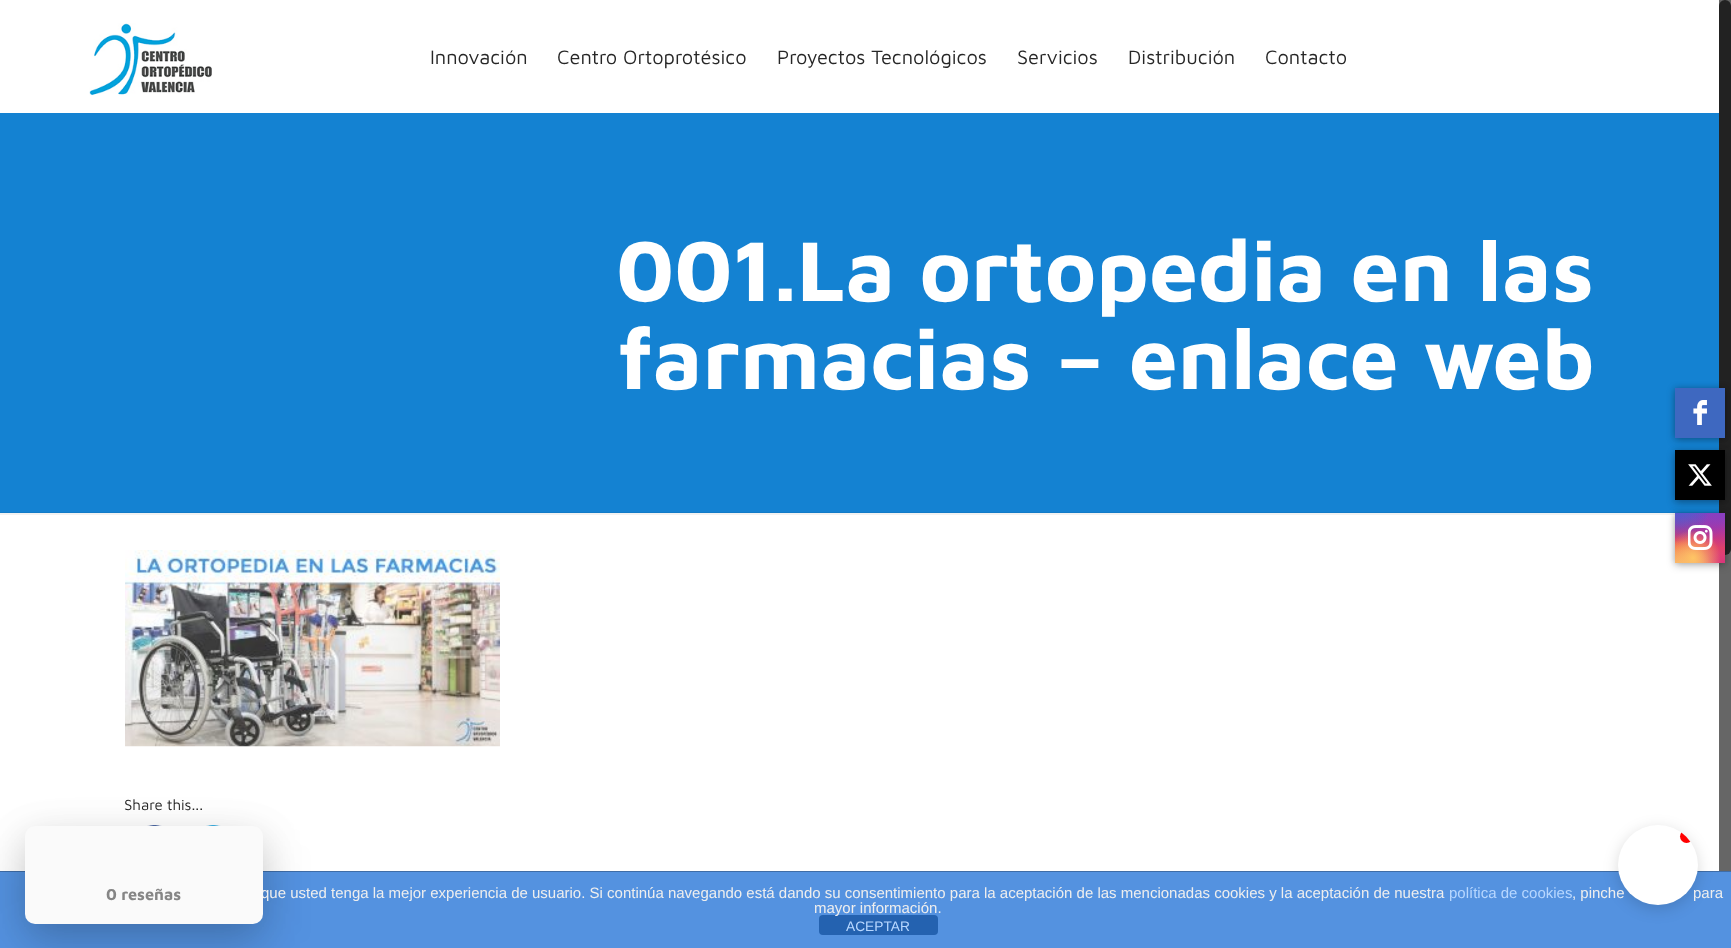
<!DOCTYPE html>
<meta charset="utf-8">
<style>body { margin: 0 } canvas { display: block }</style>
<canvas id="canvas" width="1731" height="948"></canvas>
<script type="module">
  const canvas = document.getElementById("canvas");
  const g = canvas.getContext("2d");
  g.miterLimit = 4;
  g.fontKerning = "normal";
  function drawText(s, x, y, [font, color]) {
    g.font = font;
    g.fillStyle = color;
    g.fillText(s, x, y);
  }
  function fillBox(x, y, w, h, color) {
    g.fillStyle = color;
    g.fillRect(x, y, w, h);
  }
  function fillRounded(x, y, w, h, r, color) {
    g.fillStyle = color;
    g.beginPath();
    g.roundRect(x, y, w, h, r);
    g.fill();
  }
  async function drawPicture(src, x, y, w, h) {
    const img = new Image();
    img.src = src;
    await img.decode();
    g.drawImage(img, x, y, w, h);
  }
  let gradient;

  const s1 = ["20px Maven Pro", "#272727"];
  const s2 = ["bold 87.5px Maven Pro", "#FFFFFF"];
  const s3 = ["15px Maven Pro", "#272727"];
  const s4 = ["15px Liberation Sans", "#EEEEEE"];
  const s5 = ["bold 16.25px Maven Pro", "#868686"];
  const s6 = ["15px Liberation Sans", "#B7D7FF"];
  const s7 = ["13.75px Liberation Sans", "#B7D7FF"];

  fillBox(0, 0, 1731, 948, "#FFFFFF");
  fillBox(0, 113, 1719, 400, "#1482D2");
  await drawPicture("pic1.png", 89, 23, 123, 73);
  drawText("Innovación", 430, 64, s1);
  drawText("Centro Ortoprotésico", 557, 64, s1);
  drawText("Proyectos Tecnológicos", 777, 64, s1);
  drawText("Servicios", 1017, 64, s1);
  drawText("Distribución", 1128, 64, s1);
  drawText("Contacto", 1265, 64, s1);
  drawText("001.La ortopedia en las", 616, 301, s2);
  drawText("farmacias – enlace web", 618, 389, s2);
  fillBox(0, 512, 1719, 3, "rgba(0, 0, 0, 0.05)");
  await drawPicture("pic2.png", 125, 550, 375, 197);
  drawText("Share this...", 124, 810, s3);
  await drawPicture("pic3.png", 147, 825, 15, 1);
  await drawPicture("pic4.png", 206, 825, 15, 1);
  fillBox(1719, 0, 12, 871, "#666666");
  fillRounded(1719, 0, 12, 555, 6, "#222222");
  g.fillStyle = "rgba(0, 0, 0, 0.28)";
  g.filter = "blur(4px)";
  g.beginPath();
  g.rect(1675, 390, 50, 50);
  g.fill();
  g.filter = "none";
  g.fillStyle = "rgba(0, 0, 0, 0.14)";
  g.filter = "blur(2.5px)";
  g.beginPath();
  g.rect(1675, 388, 50, 50);
  g.fill();
  g.filter = "none";
  fillBox(1675, 388, 50, 50, "#3E68C0");
  await drawPicture("pic5.png", 1693, 400, 14, 25);
  g.fillStyle = "rgba(0, 0, 0, 0.28)";
  g.filter = "blur(4px)";
  g.beginPath();
  g.rect(1675, 453, 50, 50);
  g.fill();
  g.filter = "none";
  g.fillStyle = "rgba(0, 0, 0, 0.14)";
  g.filter = "blur(2.5px)";
  g.beginPath();
  g.rect(1675, 450, 50, 50);
  g.fill();
  g.filter = "none";
  fillBox(1675, 450, 50, 50, "#000000");
  await drawPicture("pic6.png", 1688, 464, 24, 22);
  g.fillStyle = "rgba(0, 0, 0, 0.28)";
  g.filter = "blur(4px)";
  g.beginPath();
  g.rect(1675, 515, 50, 50);
  g.fill();
  g.filter = "none";
  g.fillStyle = "rgba(0, 0, 0, 0.14)";
  g.filter = "blur(2.5px)";
  g.beginPath();
  g.rect(1675, 513, 50, 50);
  g.fill();
  g.filter = "none";
  gradient = g.createLinearGradient(1700, 513, 1700, 563);
  gradient.addColorStop(0, "#6559CA");
  gradient.addColorStop(0.3, "#BC318F");
  gradient.addColorStop(0.5, "#E33F5F");
  gradient.addColorStop(0.7, "#F77638");
  gradient.addColorStop(1, "#FEC66D");
  g.fillStyle = gradient;
  g.fillRect(1675, 513, 50, 50);
  gradient = g.createRadialGradient(1725, 563, 0, 1725, 563, 71);
  gradient.addColorStop(0, "#D9317A");
  gradient.addColorStop(1, "rgba(217, 49, 122, 0)");
  g.fillStyle = gradient;
  g.fillRect(1675, 513, 50, 50);
  gradient = g.createRadialGradient(1705, 248.54, 0, 1705, 248.54, 42);
  gradient.addColorStop(0, "#893DC2");
  gradient.addColorStop(0.5, "rgba(137, 61, 194, 0)");
  g.fillStyle = gradient;
  g.beginPath();
  g.rect(1687, 513, 36, 31);
  g.save();
  g.clip();
  g.scale(1, 85 / 42);
  g.fillRect(0, 0, 1731, 469);
  g.restore();
  gradient = g.createRadialGradient(1725, 513, 0, 1725, 513, 71);
  gradient.addColorStop(0, "#893DC2");
  gradient.addColorStop(0.5, "rgba(137, 61, 194, 0)");
  g.fillStyle = gradient;
  g.fillRect(1694, 513, 31, 34);
  gradient = g.createRadialGradient(1685, 262.42, 0, 1685, 262.42, 57);
  gradient.addColorStop(0, "#5258CF");
  gradient.addColorStop(0.5, "rgba(82, 88, 207, 0)");
  g.fillStyle = gradient;
  g.beginPath();
  g.rect(1675, 513, 33, 27);
  g.save();
  g.clip();
  g.scale(1, 106 / 57);
  g.fillRect(0, 0, 1731, 510);
  g.restore();
  gradient = g.createRadialGradient(1675, 403.41, 0, 1675, 403.41, 71);
  gradient.addColorStop(0, "#5258CF");
  gradient.addColorStop(0.5, "rgba(82, 88, 207, 0)");
  g.fillStyle = gradient;
  g.beginPath();
  g.rect(1675, 513, 32, 30);
  g.save();
  g.clip();
  g.scale(1, 88 / 71);
  g.fillRect(0, 0, 1731, 765);
  g.restore();
  gradient = g.createRadialGradient(1675, 583, 0, 1675, 583, 86);
  gradient.addColorStop(0, "#FEC564");
  gradient.addColorStop(0.5, "rgba(254, 197, 100, 0)");
  g.fillStyle = gradient;
  g.fillRect(1675, 541, 37, 22);
  gradient = g.createRadialGradient(1693, 558, 0, 1693, 558, 56);
  gradient.addColorStop(0, "#FEC564");
  gradient.addColorStop(0.5, "rgba(254, 197, 100, 0)");
  g.fillStyle = gradient;
  g.fillRect(1675, 531, 45, 32);
  await drawPicture("pic7.png", 1688, 525, 25, 25);
  fillBox(0, 872, 1731, 76, "#5492E0");
  fillBox(0, 871, 1731, 1, "#3F6DA7");
  g.fillStyle = "rgba(0, 0, 0, 0.15)";
  g.filter = "blur(7.5px)";
  g.beginPath();
  g.roundRect(1618, 829, 80, 80, 40);
  g.fill();
  g.filter = "none";
  drawText(", pinche", 1572, 898, s4);
  drawText("para", 1693, 898, s4);
  g.fillStyle = "#FFFFFF";
  g.beginPath();
  g.arc(1658, 865, 40, 0, Math.PI * 2);
  g.fill();
  g.save();
  g.beginPath();
  g.roundRect(1618, 825, 80, 80, 40);
  g.clip();
  g.fillStyle = "#FF0000";
  g.beginPath();
  g.arc(1686.5, 836.5, 6.5, 0, Math.PI * 2);
  g.fill();
  g.restore();
  g.fillStyle = "rgba(0, 0, 0, 0.15)";
  g.filter = "blur(19px)";
  g.beginPath();
  g.roundRect(25, 839, 238, 97, 10);
  g.fill();
  g.filter = "none";
  g.fillStyle = "rgba(0, 0, 0, 0.1)";
  g.filter = "blur(25px)";
  g.beginPath();
  g.roundRect(25, 845, 238, 98, 10);
  g.fill();
  g.filter = "none";
  drawText("que usted tenga la mejor experiencia de usuario. Si continúa navegando está dando su consentimiento para la aceptación de las mencionadas cookies y la aceptación de nuestra", 261, 898, s4);
  fillRounded(25, 826, 238, 98, 10, "#FAFAFA");
  drawText("0 reseñas", 106, 900, s5);
  drawText("política de cookies", 1449, 898, s6);
  fillRounded(819, 915, 119, 20, 4, "#2462B0");
  drawText("mayor información.", 814, 913, s4);
  drawText("ACEPTAR", 846, 931, s7);
</script>
